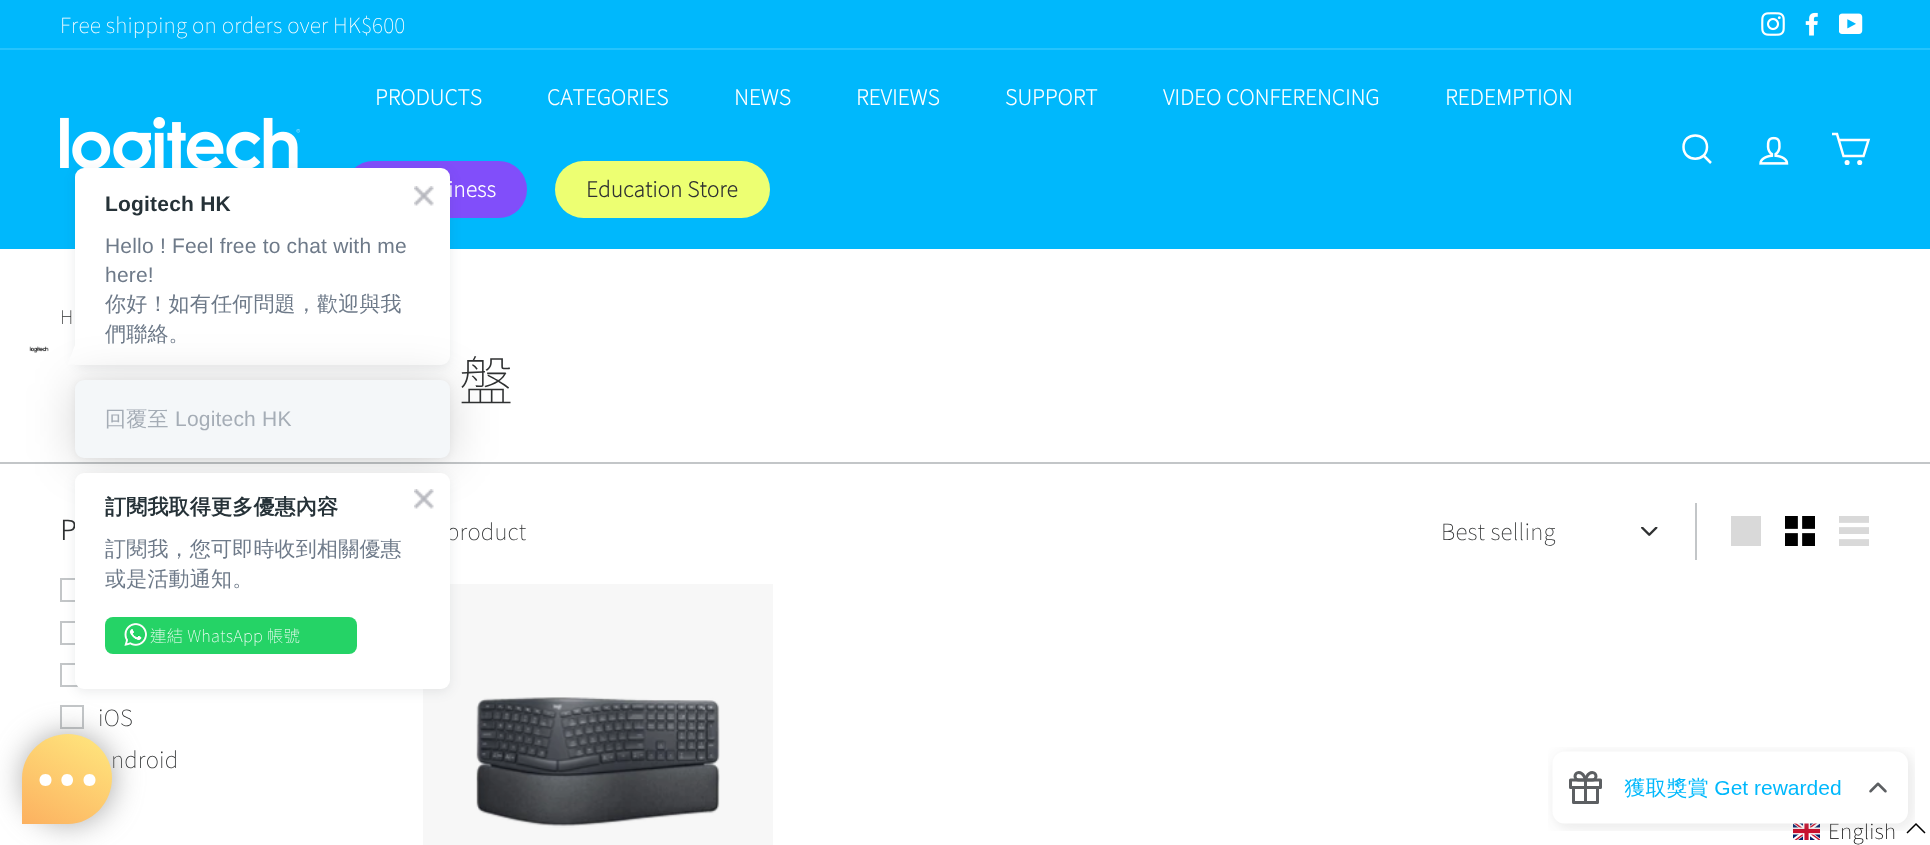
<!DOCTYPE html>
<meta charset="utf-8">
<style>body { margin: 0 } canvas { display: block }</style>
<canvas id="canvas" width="1930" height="845"></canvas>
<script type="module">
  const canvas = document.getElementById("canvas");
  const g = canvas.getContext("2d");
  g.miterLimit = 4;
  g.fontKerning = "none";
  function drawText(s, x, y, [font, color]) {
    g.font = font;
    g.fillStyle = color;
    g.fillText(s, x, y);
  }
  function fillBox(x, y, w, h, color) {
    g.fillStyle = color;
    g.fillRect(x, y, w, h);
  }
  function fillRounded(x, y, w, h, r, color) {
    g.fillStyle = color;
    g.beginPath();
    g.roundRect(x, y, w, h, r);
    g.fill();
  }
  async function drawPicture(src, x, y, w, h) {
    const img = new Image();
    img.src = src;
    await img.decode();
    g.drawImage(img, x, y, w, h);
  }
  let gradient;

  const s1 = ["100 21px Noto Sans CJK TC", "#FFFFFF"];
  const s2 = ["bold 21px Noto Sans CJK TC", "#FFFFFF"];
  const s3 = ["bold 21px Noto Sans CJK TC", "#2F3132"];
  const s4 = ["100 19px Noto Sans CJK TC", "#2F3132"];
  const s5 = ["100 54px Noto Sans CJK TC", "#2F3132"];
  const s6 = ["bold 27px Noto Sans CJK TC", "#2F3132"];
  const s7 = ["100 22.5px Noto Sans CJK TC", "#2F3132"];
  const s8 = ["bold 21px Liberation Sans", "#263238"];
  const s9 = ["21px Liberation Sans", "#6E7A89"];
  const s10 = ["500 21px WenQuanYi Zen Hei", "#6E7A89"];
  const s11 = ["500 21px WenQuanYi Zen Hei", "#A5ADB6"];
  const s12 = ["21px Liberation Sans", "#A5ADB6"];
  const s13 = ["bold 21px WenQuanYi Zen Hei", "#263238"];
  const s14 = ["100 16.5px Noto Sans CJK TC", "#FFFFFF"];
  const s15 = ["100 21px Noto Sans CJK TC", "#000000"];

  fillBox(0, 0, 1930, 845, "#FFFFFF");
  fillBox(423, 584, 350, 261, "#F7F7F7");
  fillBox(0, 0, 1930, 48, "#00B8FC");
  g.letterSpacing = "0.2px";
  drawText("Free shipping on orders over HK$600", 60, 33, s1);
  await drawPicture("pic1.png", 1761, 12, 24, 24);
  await drawPicture("pic2.png", 1805, 12, 13, 24);
  await drawPicture("pic3.png", 1839, 13, 24, 21);
  fillBox(0, 48, 1930, 2, "#26C3FC");
  fillBox(0, 50, 1930, 199, "#00B8FC");
  await drawPicture("pic4.png", 60, 117, 240, 51);
  drawText("PRODUCTS", 375, 105, s2);
  drawText("CATEGORIES", 547, 105, s2);
  drawText("NEWS", 734, 105, s2);
  drawText("REVIEWS", 856, 105, s2);
  drawText("SUPPORT", 1005, 105, s2);
  drawText("VIDEO CONFERENCING", 1163, 105, s2);
  drawText("REDEMPTION", 1445, 105, s2);
  g.fillStyle = "#814EFA";
  g.beginPath();
  g.roundRect(346, 162, 180, 55, 27.5);
  g.fill();
  g.strokeStyle = "#814EFA";
  g.lineWidth = 2;
  g.stroke();
  drawText("iness", 448, 197, s2);
  fillRounded(555, 161, 215, 57, 28.5, "#EDFF72");
  drawText("Education Store", 586, 197, s3);
  g.beginPath();
  g.moveTo(1707, 147);
  g.bezierCurveTo(1707, 162.5, 1683.5, 162.5, 1683.5, 147);
  g.bezierCurveTo(1683.5, 131.5, 1707, 131.5, 1707, 147);
  g.closePath();
  g.moveTo(1711, 163);
  g.lineTo(1703.5, 155.5);
  g.strokeStyle = "#FFFFFF";
  g.lineWidth = 2.5;
  g.stroke();
  await drawPicture("pic5.png", 1759, 136, 30, 29);
  g.beginPath();
  g.moveTo(1839, 140);
  g.lineTo(1868.5, 140);
  g.lineTo(1863.5, 156);
  g.lineTo(1843.5, 156);
  g.lineTo(1837, 134);
  g.lineTo(1832, 134);
  g.stroke();
  g.beginPath();
  g.arc(1847.1, 162.5, 1.3, 0, Math.PI * 2);
  g.stroke();
  g.beginPath();
  g.arc(1859.7, 162.5, 1.3, 0, Math.PI * 2);
  g.stroke();
  drawText("H", 60, 324, s4);
  g.letterSpacing = "0px";
  drawText("盤", 459, 401, s5);
  fillBox(0, 462, 1930, 2, "#C3C6C8");
  drawText("P", 60, 540, s6);
  g.strokeStyle = "#C3C6C8";
  g.lineWidth = 2;
  g.strokeRect(61, 579, 22, 22);
  g.strokeRect(61, 622, 22, 22);
  g.strokeRect(61, 664, 22, 22);
  g.strokeRect(61, 706, 22, 22);
  g.letterSpacing = "0.2px";
  drawText("iOS", 98, 726, s7);
  drawText("ndroid", 111, 768, s7);
  drawText("product", 446, 540, s7);
  fillBox(1695, 503, 2, 57, "#C3C6C8");
  await drawPicture("pic6.png", 1641, 527, 17, 9);
  drawText("Best selling", 1441, 540, s7);
  fillBox(1731, 516, 30, 30, "#D9D9D9");
  await drawPicture("pic7.png", 1785, 516, 30, 30);
  await drawPicture("pic8.png", 1839, 516, 30, 30);
  await drawPicture("pic9.png", 476, 697, 244, 131);
  g.fillStyle = "rgba(35, 47, 53, 0.09)";
  g.filter = "blur(6px)";
  g.beginPath();
  g.roundRect(75, 171, 375, 197, 9);
  g.fill();
  g.filter = "none";
  g.fillStyle = "#FFFFFF";
  g.beginPath();
  g.roundRect(75, 168, 375, 197, [9, 9, 9, 0]);
  g.fill();
  drawText("Logitech HK", 105, 211, s8);
  await drawPicture("pic10.png", 414, 186, 20, 20);
  drawText("Hello ! Feel free to chat with me", 105, 253, s9);
  drawText("here!", 105, 282, s9);
  drawText("你好！如有任何問題，歡迎與我", 105, 311, s10);
  drawText("們聯絡。", 105, 341, s10);
  g.fillStyle = "#FFFFFF";
  g.beginPath();
  g.moveTo(75, 364.5);
  g.lineTo(67.5, 364.5);
  g.lineTo(75, 345);
  g.closePath();
  g.fill();
  g.fillStyle = "rgba(0, 0, 0, 0.16)";
  g.filter = "blur(24px)";
  g.beginPath();
  g.roundRect(75, 383, 375, 78, 9);
  g.fill();
  g.filter = "none";
  await drawPicture("pic11.png", 29, 346, 20, 7);
  g.fillStyle = "rgba(0, 0, 0, 0.06)";
  g.filter = "blur(4.5px)";
  g.beginPath();
  g.roundRect(75, 381, 375, 78, 9);
  g.fill();
  g.filter = "none";
  fillRounded(75, 380, 375, 78, 9, "#F4F7F9");
  drawText("回覆至", 105, 426, s11);
  drawText("Logitech HK", 175, 426, s12);
  g.fillStyle = "rgba(35, 47, 53, 0.09)";
  g.filter = "blur(6px)";
  g.beginPath();
  g.roundRect(75, 476, 375, 216, 9);
  g.fill();
  g.filter = "none";
  fillRounded(75, 473, 375, 216, 9, "#FFFFFF");
  drawText("訂閱我取得更多優惠內容", 105, 514, s13);
  await drawPicture("pic10.png", 414, 489, 20, 20);
  drawText("訂閱我，您可即時收到相關優惠", 105, 556, s10);
  drawText("或是活動通知。", 105, 586, s10);
  fillRounded(105, 617, 252, 37, 8, "#25D366");
  await drawPicture("pic12.png", 124, 622, 24, 25);
  drawText("連結 WhatsApp 帳號", 150, 642, s14);
  g.fillStyle = "rgba(119, 119, 119, 0.64)";
  g.filter = "blur(15px)";
  g.beginPath();
  g.roundRect(23, 734, 90, 90, 45);
  g.fill();
  g.filter = "none";
  gradient = g.createLinearGradient(37, 832, 98, 725);
  gradient.addColorStop(0, "#FCB160");
  gradient.addColorStop(1, "#FFE97F");
  g.fillStyle = gradient;
  g.beginPath();
  g.moveTo(68, 734);
  g.bezierCurveTo(43, 734, 22, 754, 22, 778);
  g.lineTo(22, 824);
  g.lineTo(68, 824);
  g.bezierCurveTo(92, 824, 112, 803, 112, 778);
  g.bezierCurveTo(112, 754, 92, 734, 68, 734);
  g.closePath();
  g.fill();
  g.fillStyle = "#FFFFFF";
  g.beginPath();
  g.moveTo(89.5, 774);
  g.bezierCurveTo(81.5, 774, 81.5, 786, 89.5, 786);
  g.bezierCurveTo(97.5, 786, 97.5, 774, 89.5, 774);
  g.closePath();
  g.moveTo(45.5, 774);
  g.bezierCurveTo(37.5, 774, 37.5, 786, 45.5, 786);
  g.bezierCurveTo(53.5, 786, 53.5, 774, 45.5, 774);
  g.closePath();
  g.fill();
  g.beginPath();
  g.moveTo(67, 774);
  g.bezierCurveTo(59.5, 774, 59.5, 786, 67, 786);
  g.bezierCurveTo(75, 786, 75, 774, 67, 774);
  g.closePath();
  g.fill();
  await drawPicture("pic14.png", 1793, 823, 27, 17);
  drawText("English", 1828, 839, s15);
  g.beginPath();
  g.moveTo(1925, 833);
  g.lineTo(1916, 824);
  g.lineTo(1907, 833);
  g.strokeStyle = "#000000";
  g.lineWidth = 1.5;
  g.stroke();
  await drawPicture("pic13.png", 1548, 747, 367, 84);
</script>
